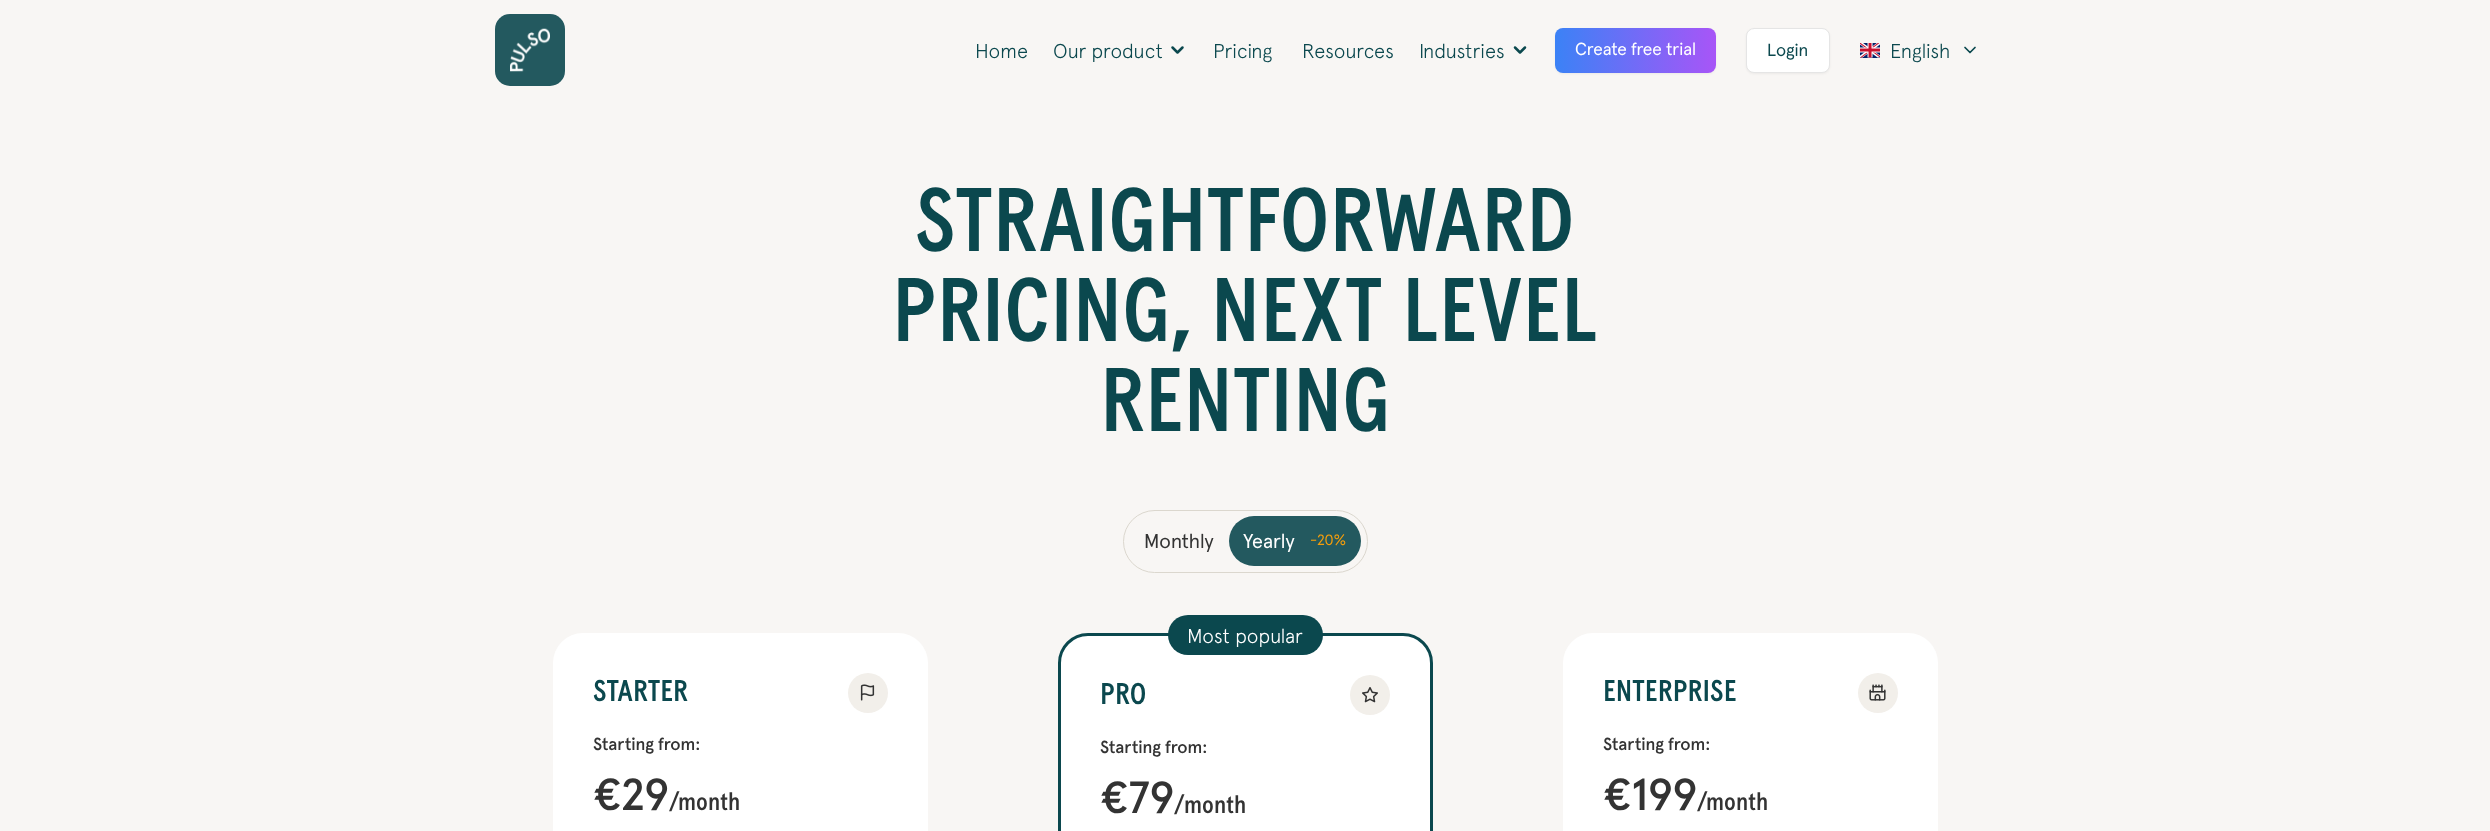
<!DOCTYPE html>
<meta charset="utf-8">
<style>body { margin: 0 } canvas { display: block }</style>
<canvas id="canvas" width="2490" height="831"></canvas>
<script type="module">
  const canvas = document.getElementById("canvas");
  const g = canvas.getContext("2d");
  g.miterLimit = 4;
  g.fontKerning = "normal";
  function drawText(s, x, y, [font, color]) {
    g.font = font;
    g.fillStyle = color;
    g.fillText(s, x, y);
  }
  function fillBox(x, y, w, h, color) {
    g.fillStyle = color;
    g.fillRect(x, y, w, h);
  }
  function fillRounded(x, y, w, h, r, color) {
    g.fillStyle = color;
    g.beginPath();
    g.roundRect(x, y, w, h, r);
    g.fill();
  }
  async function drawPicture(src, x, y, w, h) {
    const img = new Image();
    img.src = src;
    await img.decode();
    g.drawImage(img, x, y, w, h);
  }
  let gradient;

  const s1 = ["300 20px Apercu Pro", "#0B484E"];
  const s2 = ["17.5px Apercu Pro", "#FFFFFF"];
  const s3 = ["17.5px Apercu Pro", "#0B484E"];
  const s4 = ["500 90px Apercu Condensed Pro", "#0B484E"];
  const s5 = ["20px Apercu Pro", "#333333"];
  const s6 = ["20px Apercu Pro", "#FFFFFF"];
  const s7 = ["15px Apercu Pro", "#F59E0B"];
  const s8 = ["500 30px Apercu Condensed Pro", "#0B484E"];
  const s9 = ["500 17.5px Apercu Pro", "#333333"];
  const s10 = ["500 45px Apercu Pro", "#333333"];
  const s11 = ["500 25px Apercu Condensed Pro", "#333333"];
  const s12 = ["300 20px Apercu Pro", "#FFFFFF"];

  fillBox(0, 0, 2490, 831, "#F8F6F4");
  fillRounded(495, 14, 70, 72, 15, "#23595F");
  await drawPicture("pic1.png", 510, 28, 40, 44);
  drawText("Home", 975, 58, s1);
  drawText("Our product", 1053, 58, s1);
  g.beginPath();
  g.moveTo(1172.5, 47.5);
  g.lineTo(1177.5, 52.5);
  g.lineTo(1182.5, 47.5);
  g.strokeStyle = "#0B484E";
  g.lineWidth = 2.5;
  g.lineCap = "round";
  g.lineJoin = "round";
  g.stroke();
  drawText("Pricing", 1213, 58, s1);
  drawText("Resources", 1302, 58, s1);
  drawText("Industries", 1419, 58, s1);
  g.beginPath();
  g.moveTo(1515, 47.5);
  g.lineTo(1520, 52.5);
  g.lineTo(1525, 47.5);
  g.stroke();
  g.fillStyle = "rgba(0, 0, 0, 0.05)";
  g.filter = "blur(1px)";
  g.beginPath();
  g.roundRect(1555, 29, 161, 45, 8);
  g.fill();
  g.filter = "none";
  gradient = g.createLinearGradient(1555, 50, 1716, 50);
  gradient.addColorStop(0, "#3B82F6");
  gradient.addColorStop(1, "#A855F7");
  g.fillStyle = gradient;
  g.beginPath();
  g.roundRect(1555, 28, 161, 45, 8);
  g.fill();
  drawText("Create free trial", 1575, 55, s2);
  g.fillStyle = "rgba(0, 0, 0, 0.05)";
  g.filter = "blur(1px)";
  g.beginPath();
  g.roundRect(1746, 29, 84, 45, 8);
  g.fill();
  g.filter = "none";
  g.fillStyle = "#FFFFFF";
  g.beginPath();
  g.roundRect(1746.5, 28.5, 83, 44, 7.5);
  g.fill();
  g.strokeStyle = "#E5E5E5";
  g.lineWidth = 1;
  g.lineJoin = "miter";
  g.stroke();
  drawText("Login", 1767, 56, s3);
  await drawPicture("pic2.png", 1860, 43, 20, 15);
  drawText("English", 1890, 58, s1);
  g.beginPath();
  g.moveTo(1965, 47.5);
  g.lineTo(1970, 52.5);
  g.lineTo(1975, 47.5);
  g.strokeStyle = "#0B484E";
  g.lineWidth = 1.7;
  g.lineJoin = "round";
  g.stroke();
  drawText("STRAIGHTFORWARD", 915, 251, s4);
  drawText("PRICING, NEXT LEVEL", 892, 341, s4);
  drawText("RENTING", 1100, 431, s4);
  g.beginPath();
  g.roundRect(1123.5, 510.5, 244, 62, 31);
  g.strokeStyle = "#DBD7CE";
  g.lineWidth = 1;
  g.lineJoin = "miter";
  g.stroke();
  drawText("Monthly", 1144, 548, s5);
  fillRounded(1229, 516, 132, 50, 25, "#23595F");
  drawText("Yearly", 1243, 548, s6);
  drawText("-20%", 1310, 545, s7);
  fillRounded(553, 633, 375, 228, 30, "#FFFFFF");
  drawText("STARTER", 593, 701, s8);
  g.fillStyle = "#F2EFEA";
  g.beginPath();
  g.arc(868, 693, 20, 0, Math.PI * 2);
  g.fill();
  await drawPicture("pic3.png", 860, 684, 15, 17);
  drawText("Starting from:", 593, 750, s9);
  drawText("€29", 593, 810, s10);
  drawText("/", 669, 810, s11);
  drawText("month", 678, 810, s11);
  g.fillStyle = "#FFFFFF";
  g.beginPath();
  g.roundRect(1059.5, 634.5, 372, 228, 28.5);
  g.fill();
  g.strokeStyle = "#0B484E";
  g.lineWidth = 3;
  g.stroke();
  fillRounded(1168, 615, 155, 40, 20, "#0B484E");
  drawText("Most popular", 1187, 643, s12);
  drawText("PRO", 1100, 704, s8);
  g.fillStyle = "#F2EFEA";
  g.beginPath();
  g.arc(1370, 695, 20, 0, Math.PI * 2);
  g.fill();
  await drawPicture("pic4.png", 1362, 687, 16, 16);
  drawText("Starting from:", 1100, 753, s9);
  drawText("€79", 1100, 813, s10);
  drawText("/", 1174, 813, s11);
  drawText("month", 1184, 813, s11);
  fillRounded(1563, 633, 375, 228, 30, "#FFFFFF");
  drawText("ENTERPRISE", 1603, 701, s8);
  g.fillStyle = "#F2EFEA";
  g.beginPath();
  g.arc(1878, 693, 20, 0, Math.PI * 2);
  g.fill();
  await drawPicture("pic5.png", 1869, 684, 17, 17);
  drawText("Starting from:", 1603, 750, s9);
  drawText("€199", 1603, 810, s10);
  drawText("/", 1697, 810, s11);
  drawText("month", 1706, 810, s11);
</script>
